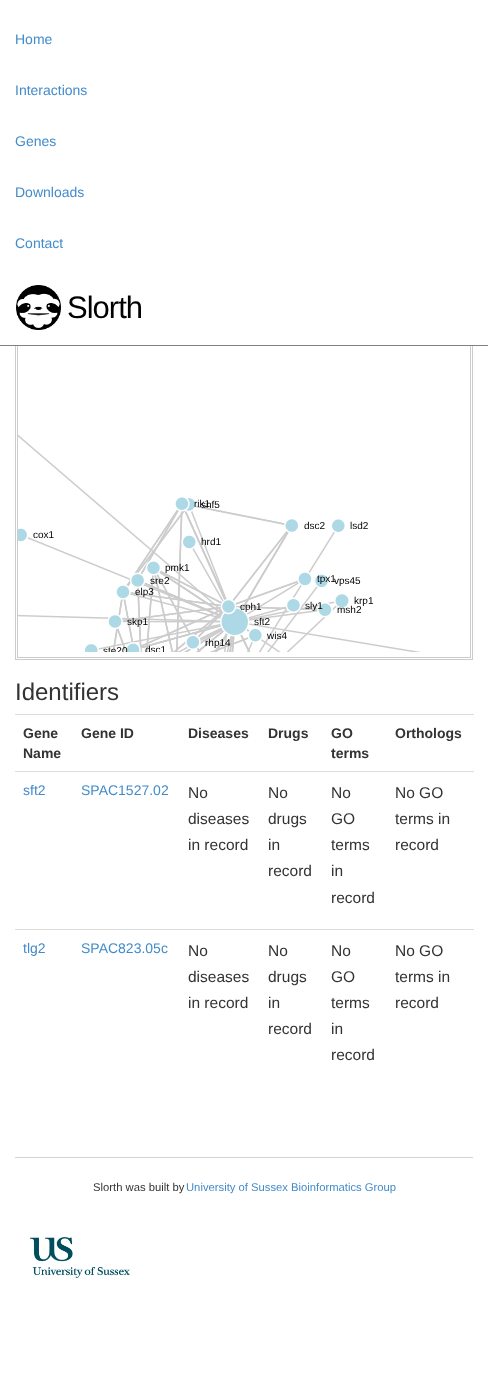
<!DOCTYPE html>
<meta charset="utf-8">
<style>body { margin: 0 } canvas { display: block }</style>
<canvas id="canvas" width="488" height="1375"></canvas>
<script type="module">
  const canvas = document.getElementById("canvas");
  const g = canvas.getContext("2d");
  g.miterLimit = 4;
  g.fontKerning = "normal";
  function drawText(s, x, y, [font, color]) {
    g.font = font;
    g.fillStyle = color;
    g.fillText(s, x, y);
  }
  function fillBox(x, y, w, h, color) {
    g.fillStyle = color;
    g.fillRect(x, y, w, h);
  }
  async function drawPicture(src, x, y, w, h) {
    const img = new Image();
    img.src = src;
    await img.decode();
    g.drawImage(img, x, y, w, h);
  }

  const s1 = ["14px Liberation Sans", "#428BCA"];
  const s2 = ["31px Liberation Sans", "#000000"];
  const s3 = ["10px Liberation Sans", "#000000"];
  const s4 = ["24px Liberation Sans", "#333333"];
  const s5 = ["bold 14px Liberation Sans", "#333333"];
  const s6 = ["15.5px Liberation Sans", "#333333"];
  const s7 = ["11.25px Liberation Sans", "#333333"];
  const s8 = ["11.25px Liberation Sans", "#428BCA"];

  fillBox(0, 0, 488, 1375, "#FFFFFF");
  g.strokeStyle = "#CCCCCC";
  g.strokeRect(15.5, 249.5, 457, 410);
  g.strokeRect(17.5, 251.5, 453, 406);
  fillBox(15, 249, 458, 96, "#FFFFFF");
  fillBox(0, 345, 488, 1, "#808080");
  drawText("Home", 15, 44, s1);
  drawText("Interactions", 15, 95, s1);
  drawText("Genes", 15, 146, s1);
  drawText("Downloads", 15, 197, s1);
  drawText("Contact", 15, 248, s1);
  await drawPicture("pic1.png", 16, 285, 45, 45);
  g.letterSpacing = "-1px";
  drawText("Slorth", 67, 318, s2);
  await drawPicture("pic2.png", 18, 434, 403, 218);
  g.letterSpacing = "0px";
  drawText("snf5", 201, 508, s3);
  drawText("rik1", 194, 507, s3);
  drawText("dsc2", 304, 529, s3);
  drawText("lsd2", 350, 529, s3);
  drawText("cox1", 33, 538, s3);
  drawText("hrd1", 201, 545, s3);
  drawText("pmk1", 165, 571, s3);
  drawText("sre2", 150, 584, s3);
  drawText("vps45", 334, 584, s3);
  drawText("tpx1", 317, 582, s3);
  drawText("elp3", 135, 595, s3);
  drawText("cph1", 240, 610, s3);
  drawText("sly1", 305, 609, s3);
  drawText("msh2", 337, 613, s3);
  drawText("krp1", 354, 604, s3);
  drawText("skp1", 127, 625, s3);
  drawText("sft2", 254, 625, s3);
  drawText("wis4", 267, 639, s3);
  g.save();
  g.beginPath();
  g.rect(18, 252, 458, 400);
  g.clip();
  drawText("ste20", 103, 654, s3);
  drawText("dsc1", 145, 653, s3);
  g.restore();
  drawText("rhp14", 205, 646, s3);
  drawText("Identifiers", 15, 700, s4);
  drawText("Gene", 23, 738, s5);
  drawText("Name", 23, 758, s5);
  drawText("Gene ID", 81, 738, s5);
  drawText("Diseases", 188, 738, s5);
  drawText("Drugs", 268, 738, s5);
  drawText("GO", 331, 738, s5);
  drawText("terms", 331, 758, s5);
  fillBox(15, 714, 459, 1, "#DDDDDD");
  drawText("Orthologs", 395, 738, s5);
  drawText("sft2", 23, 795, s1);
  drawText("SPAC1527.02", 81, 795, s1);
  drawText("No", 188, 798, s6);
  drawText("diseases", 188, 824, s6);
  drawText("in record", 188, 850, s6);
  drawText("No", 268, 798, s6);
  drawText("drugs", 268, 824, s6);
  drawText("in", 268, 850, s6);
  drawText("record", 268, 876, s6);
  drawText("No", 331, 798, s6);
  drawText("GO", 331, 824, s6);
  drawText("terms", 331, 850, s6);
  drawText("in", 331, 876, s6);
  drawText("record", 331, 903, s6);
  fillBox(15, 771, 459, 1, "#DDDDDD");
  drawText("No GO", 395, 798, s6);
  drawText("terms in", 395, 824, s6);
  drawText("record", 395, 850, s6);
  drawText("tlg2", 23, 953, s1);
  drawText("SPAC823.05c", 81, 953, s1);
  drawText("No", 188, 956, s6);
  drawText("diseases", 188, 982, s6);
  drawText("in record", 188, 1008, s6);
  drawText("No", 268, 956, s6);
  drawText("drugs", 268, 982, s6);
  drawText("in", 268, 1008, s6);
  drawText("record", 268, 1034, s6);
  drawText("No", 331, 956, s6);
  drawText("GO", 331, 982, s6);
  drawText("terms", 331, 1008, s6);
  drawText("in", 331, 1034, s6);
  drawText("record", 331, 1060, s6);
  fillBox(15, 929, 459, 1, "#DDDDDD");
  drawText("No GO", 395, 956, s6);
  drawText("terms in", 395, 982, s6);
  drawText("record", 395, 1008, s6);
  fillBox(15, 1157, 458, 1, "#D3D3D3");
  drawText("Slorth was built by", 93, 1191, s7);
  drawText("University of Sussex Bioinformatics Group", 186, 1191, s8);
  await drawPicture("pic3.png", 30, 1237, 100, 41);
</script>
